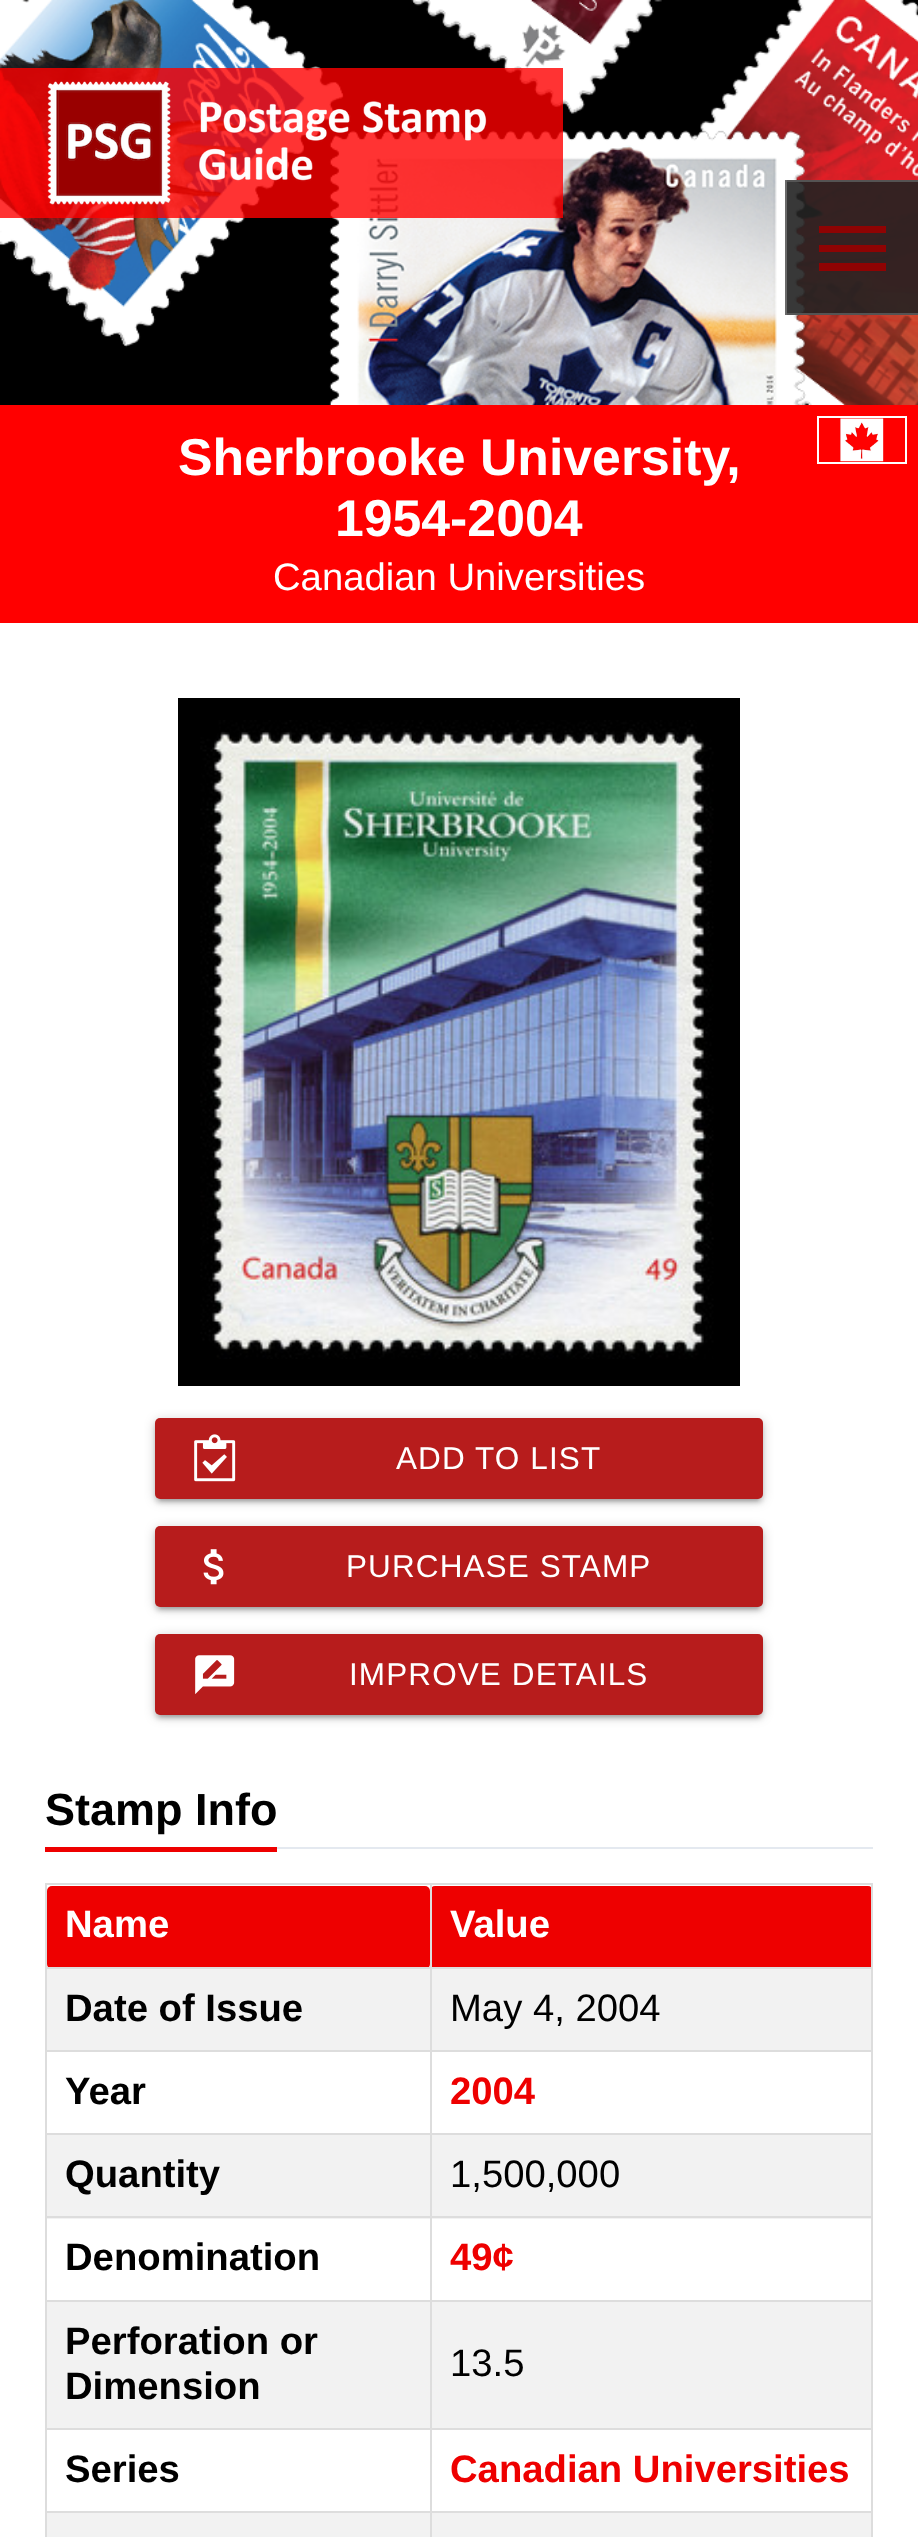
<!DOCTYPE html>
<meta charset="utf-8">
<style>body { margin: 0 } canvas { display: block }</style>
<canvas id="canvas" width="918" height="2537"></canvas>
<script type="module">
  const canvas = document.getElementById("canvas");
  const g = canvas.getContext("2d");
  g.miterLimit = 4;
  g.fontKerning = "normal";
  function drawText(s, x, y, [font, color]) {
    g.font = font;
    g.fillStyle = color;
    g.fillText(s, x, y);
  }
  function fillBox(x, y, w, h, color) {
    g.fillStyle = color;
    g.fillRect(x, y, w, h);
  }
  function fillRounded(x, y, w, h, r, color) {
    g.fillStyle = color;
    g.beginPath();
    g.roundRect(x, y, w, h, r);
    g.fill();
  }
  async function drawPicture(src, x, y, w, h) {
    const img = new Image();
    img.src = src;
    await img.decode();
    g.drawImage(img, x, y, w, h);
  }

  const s1 = ["bold 51.75px Liberation Sans", "#FFFFFF"];
  const s2 = ["38.25px Liberation Sans", "#FFFFFF"];
  const s3 = ["31.5px Liberation Sans", "#FFFFFF"];
  const s4 = ["bold 45px Liberation Sans", "#000000"];
  const s5 = ["bold 38.25px Liberation Sans", "#FFFFFF"];
  const s6 = ["bold 38.25px Liberation Sans", "#000000"];
  const s7 = ["38.25px Liberation Sans", "#000000"];
  const s8 = ["bold 38.25px Liberation Sans", "#EE0000"];

  fillBox(0, 0, 918, 2537, "#FFFFFF");
  await drawPicture("pic1.png", 0, 0, 918, 405);
  fillBox(0, 68, 563, 150, "rgba(255, 0, 0, 0.8)");
  await drawPicture("pic2.png", 47, 81, 440, 124);
  fillBox(787, 180, 131, 135, "rgba(34, 34, 34, 0.9)");
  fillBox(785, 180, 133, 2, "rgba(89, 89, 89, 0.9)");
  fillBox(785, 313, 133, 2, "rgba(89, 89, 89, 0.9)");
  fillBox(785, 180, 2, 135, "#6A6A6A");
  g.fillStyle = "rgba(153, 0, 0, 0.9)";
  g.beginPath();
  g.moveTo(819, 226);
  g.lineTo(886, 226);
  g.lineTo(886, 233);
  g.lineTo(819, 233);
  g.closePath();
  g.moveTo(819, 252);
  g.lineTo(819, 245);
  g.lineTo(886, 245);
  g.lineTo(886, 252);
  g.closePath();
  g.moveTo(819, 271);
  g.lineTo(819, 263);
  g.lineTo(886, 263);
  g.lineTo(886, 271);
  g.closePath();
  g.fill();
  fillBox(0, 405, 918, 218, "#FF0000");
  drawText("Sherbrooke University,", 178, 475, s1);
  drawText("1954-2004", 335, 536, s1);
  g.strokeStyle = "#FFFFFF";
  g.lineWidth = 2;
  g.strokeRect(818, 417, 88, 46);
  await drawPicture("pic3.png", 840, 418, 44, 44);
  drawText("Canadian Universities", 273, 590, s2);
  fillBox(178, 698, 562, 688, "#000000");
  await drawPicture("pic4.png", 200, 720, 514, 639);
  g.fillStyle = "rgba(0, 0, 0, 0.2)";
  g.filter = "blur(5.5px)";
  g.beginPath();
  g.roundRect(155, 1420, 608, 81, 5);
  g.fill();
  g.filter = "none";
  g.fillStyle = "rgba(0, 0, 0, 0.12)";
  g.filter = "blur(1px)";
  g.beginPath();
  g.rect(160, 1429, 598, 72);
  g.fill();
  g.filter = "none";
  g.fillStyle = "rgba(0, 0, 0, 0.14)";
  g.filter = "blur(2px)";
  g.beginPath();
  g.roundRect(155, 1422, 608, 81, 5);
  g.fill();
  g.filter = "none";
  fillRounded(155, 1418, 608, 81, 5, "#B71C1C");
  await drawPicture("pic5.png", 194, 1434, 42, 48);
  g.letterSpacing = "1.1px";
  drawText("ADD TO LIST", 396, 1469, s3);
  g.fillStyle = "rgba(0, 0, 0, 0.2)";
  g.filter = "blur(5.5px)";
  g.beginPath();
  g.roundRect(155, 1528, 608, 81, 5);
  g.fill();
  g.filter = "none";
  g.fillStyle = "rgba(0, 0, 0, 0.12)";
  g.filter = "blur(1px)";
  g.beginPath();
  g.rect(160, 1537, 598, 72);
  g.fill();
  g.filter = "none";
  g.fillStyle = "rgba(0, 0, 0, 0.14)";
  g.filter = "blur(2px)";
  g.beginPath();
  g.roundRect(155, 1530, 608, 81, 5);
  g.fill();
  g.filter = "none";
  fillRounded(155, 1526, 608, 81, 5, "#B71C1C");
  await drawPicture("pic6.png", 203, 1549, 21, 36);
  drawText("PURCHASE STAMP", 346, 1577, s3);
  g.fillStyle = "rgba(0, 0, 0, 0.2)";
  g.filter = "blur(5.5px)";
  g.beginPath();
  g.roundRect(155, 1636, 608, 81, 5);
  g.fill();
  g.filter = "none";
  g.fillStyle = "rgba(0, 0, 0, 0.12)";
  g.filter = "blur(1px)";
  g.beginPath();
  g.rect(160, 1645, 598, 72);
  g.fill();
  g.filter = "none";
  g.fillStyle = "rgba(0, 0, 0, 0.14)";
  g.filter = "blur(2px)";
  g.beginPath();
  g.roundRect(155, 1638, 608, 81, 5);
  g.fill();
  g.filter = "none";
  fillRounded(155, 1634, 608, 81, 5, "#B71C1C");
  await drawPicture("pic7.png", 195, 1655, 40, 39);
  drawText("IMPROVE DETAILS", 349, 1685, s3);
  fillBox(277, 1847, 596, 2, "#E4E9F0");
  fillBox(45, 1847, 232, 5, "#EE0000");
  g.letterSpacing = "0px";
  drawText("Stamp Info", 45, 1825, s4);
  fillRounded(47, 1886, 383, 83, 5, "#EE0000");
  fillBox(430, 1883, 443, 2, "#DDDDDD");
  fillRounded(430, 1886, 443, 83, 5, "#EE0000");
  fillBox(430, 1967, 443, 2, "#DDDDDD");
  fillBox(47, 1969, 824, 81, "#F2F2F2");
  fillBox(430, 2050, 443, 2, "#DDDDDD");
  fillBox(430, 2133, 443, 2, "#DDDDDD");
  fillBox(47, 2135, 824, 84, "#F2F2F2");
  fillBox(430, 2216, 443, 2, "#DDDDDD");
  fillBox(430, 2300, 443, 2, "#DDDDDD");
  fillBox(47, 2302, 824, 126, "#F2F2F2");
  fillBox(430, 2428, 443, 2, "#DDDDDD");
  fillBox(430, 2511, 443, 2, "#DDDDDD");
  fillBox(47, 2513, 824, 24, "#F2F2F2");
  fillBox(430, 2511, 2, 26, "#DDDDDD");
  fillBox(45, 2511, 387, 2, "#DDDDDD");
  fillBox(430, 2428, 2, 85, "#DDDDDD");
  fillBox(45, 2428, 387, 2, "#DDDDDD");
  fillBox(430, 2300, 2, 130, "#DDDDDD");
  fillBox(45, 2300, 387, 2, "#DDDDDD");
  fillBox(430, 2216, 2, 86, "#DDDDDD");
  fillBox(45, 2216, 387, 2, "#DDDDDD");
  fillBox(430, 2133, 2, 86, "#DDDDDD");
  fillBox(45, 2133, 387, 2, "#DDDDDD");
  fillBox(430, 2050, 2, 85, "#DDDDDD");
  fillBox(45, 2050, 387, 2, "#DDDDDD");
  fillBox(430, 1967, 2, 85, "#DDDDDD");
  fillBox(45, 1967, 387, 2, "#DDDDDD");
  fillBox(430, 1883, 2, 86, "#DDDDDD");
  fillBox(45, 1883, 387, 2, "#DDDDDD");
  fillBox(45, 2511, 2, 26, "#DDDDDD");
  fillBox(45, 2428, 2, 85, "#DDDDDD");
  fillBox(45, 2300, 2, 130, "#DDDDDD");
  fillBox(45, 2216, 2, 86, "#DDDDDD");
  fillBox(45, 2133, 2, 86, "#DDDDDD");
  fillBox(45, 2050, 2, 85, "#DDDDDD");
  fillBox(45, 1967, 2, 85, "#DDDDDD");
  fillBox(45, 1883, 2, 86, "#DDDDDD");
  drawText("Name", 65, 1937, s5);
  fillBox(871, 2511, 2, 26, "#DDDDDD");
  fillBox(871, 2428, 2, 85, "#DDDDDD");
  fillBox(871, 2300, 2, 130, "#DDDDDD");
  fillBox(871, 2216, 2, 86, "#DDDDDD");
  fillBox(871, 2133, 2, 86, "#DDDDDD");
  fillBox(871, 2050, 2, 85, "#DDDDDD");
  fillBox(871, 1967, 2, 85, "#DDDDDD");
  fillBox(871, 1883, 2, 86, "#DDDDDD");
  drawText("Value", 450, 1937, s5);
  drawText("Date of Issue", 65, 2021, s6);
  drawText("May 4, 2004", 450, 2021, s7);
  drawText("Year", 65, 2104, s6);
  drawText("2004", 450, 2104, s8);
  drawText("Quantity", 65, 2187, s6);
  drawText("1,500,000", 450, 2187, s7);
  drawText("Denomination", 65, 2270, s6);
  drawText("49¢", 450, 2270, s8);
  drawText("Perforation or", 65, 2354, s6);
  drawText("Dimension", 65, 2399, s6);
  drawText("13.5", 450, 2376, s7);
  drawText("Series", 65, 2482, s6);
  drawText("Canadian Universities", 450, 2482, s8);
</script>
